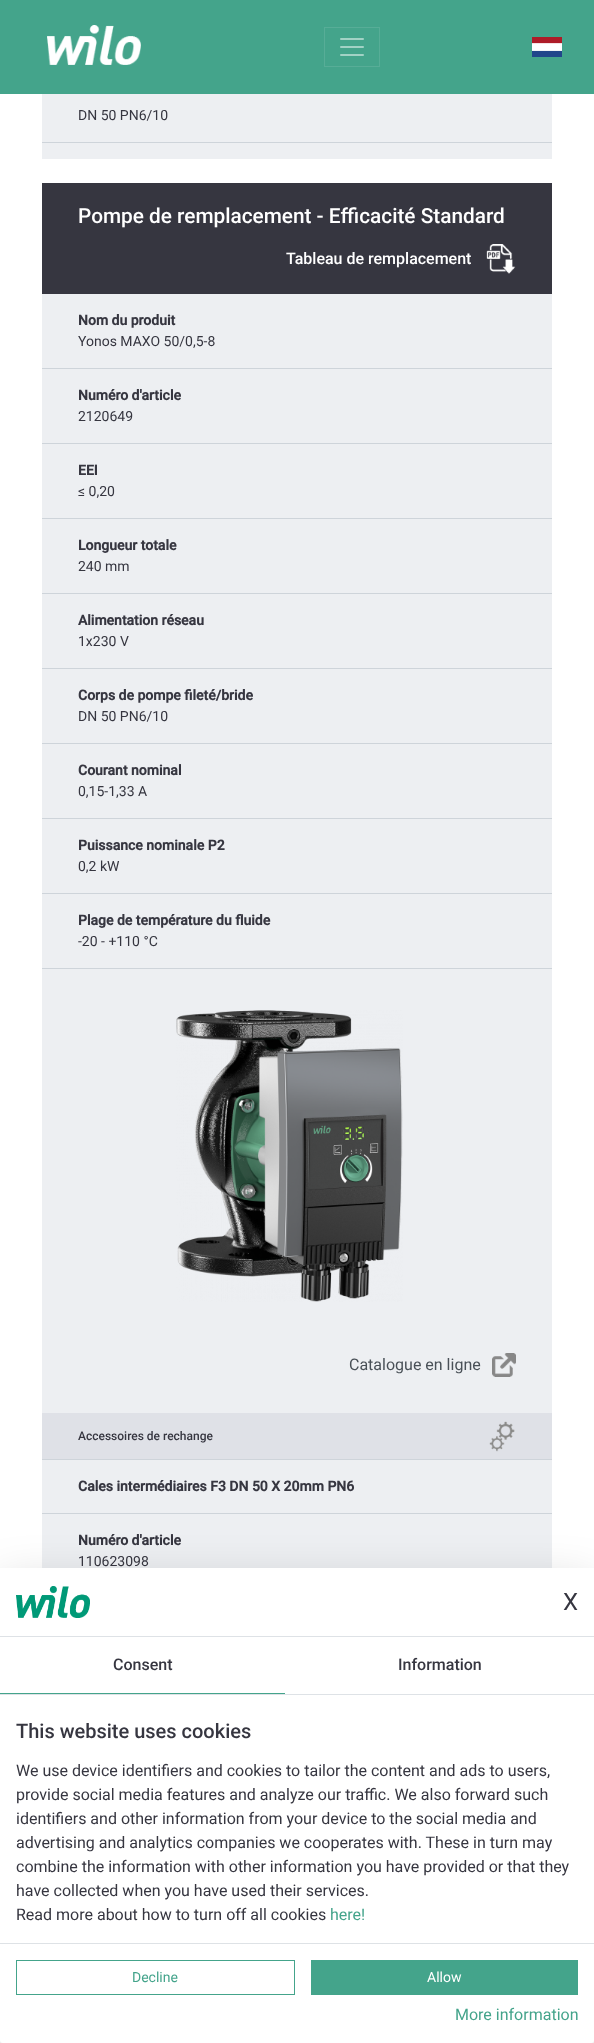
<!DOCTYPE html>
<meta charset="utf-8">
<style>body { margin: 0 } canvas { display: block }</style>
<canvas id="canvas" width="594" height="2043"></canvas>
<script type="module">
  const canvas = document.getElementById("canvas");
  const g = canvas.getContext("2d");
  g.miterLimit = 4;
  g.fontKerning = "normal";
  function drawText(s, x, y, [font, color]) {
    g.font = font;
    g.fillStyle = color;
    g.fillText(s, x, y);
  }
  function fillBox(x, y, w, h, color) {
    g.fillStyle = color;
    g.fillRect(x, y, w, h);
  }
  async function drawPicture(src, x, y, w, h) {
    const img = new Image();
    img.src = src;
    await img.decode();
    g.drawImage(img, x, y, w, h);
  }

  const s1 = ["14px Roboto", "#363640"];
  const s2 = ["500 20.8px Roboto", "#FFFFFF"];
  const s3 = ["500 16px Roboto", "#FFFFFF"];
  const s4 = ["bold 14px Roboto", "#363640"];
  const s5 = ["16px Roboto", "#495057"];
  const s6 = ["500 12px Roboto", "#363640"];
  const s7 = ["24px Roboto", "#363640"];
  const s8 = ["500 16px Roboto", "#363640"];
  const s9 = ["500 20px Roboto", "#363640"];
  const s10 = ["16px Roboto", "#363640"];
  const s11 = ["16px Roboto", "#44A48B"];
  const s12 = ["14px Roboto", "#44A48B"];
  const s13 = ["14px Roboto", "#FFFFFF"];

  fillBox(0, 0, 594, 2043, "#FFFFFF");
  fillBox(0, 0, 594, 94, "#44A48B");
  await drawPicture("pic1.png", 47, 25, 94, 40);
  g.strokeStyle = "#57AD97";
  g.strokeRect(324.5, 27.5, 55, 39);
  await drawPicture("pic2.png", 340, 38, 24, 18);
  await drawPicture("pic3.png", 532, 37, 30, 20);
  fillBox(42, 94, 510, 65, "#EDEFF2");
  fillBox(42, 142, 510, 1, "#CED4DA");
  drawText("DN 50 PN6/10", 78, 120, s1);
  fillBox(42, 294, 510, 1274, "#EDEFF2");
  fillBox(42, 183, 510, 111, "#363640");
  drawText("Pompe de remplacement - Efficacité Standard", 78, 223, s2);
  await drawPicture("pic4.png", 486, 244, 30, 30);
  drawText("Tableau de remplacement", 286, 264, s3);
  fillBox(42, 368, 510, 1, "#CED4DA");
  drawText("Nom du produit", 78, 325, s4);
  drawText("Yonos MAXO 50/0,5-8", 78, 346, s1);
  fillBox(42, 443, 510, 1, "#CED4DA");
  drawText("Numéro d'article", 78, 400, s4);
  drawText("2120649", 78, 421, s1);
  fillBox(42, 518, 510, 1, "#CED4DA");
  drawText("EEI", 78, 475, s4);
  drawText("≤ 0,20", 78, 496, s1);
  fillBox(42, 593, 510, 1, "#CED4DA");
  drawText("Longueur totale", 78, 550, s4);
  drawText("240 mm", 78, 571, s1);
  fillBox(42, 668, 510, 1, "#CED4DA");
  drawText("Alimentation réseau", 78, 625, s4);
  drawText("1x230 V", 78, 646, s1);
  fillBox(42, 743, 510, 1, "#CED4DA");
  drawText("Corps de pompe fileté/bride", 78, 700, s4);
  drawText("DN 50 PN6/10", 78, 721, s1);
  fillBox(42, 818, 510, 1, "#CED4DA");
  drawText("Courant nominal", 78, 775, s4);
  drawText("0,15-1,33 A", 78, 796, s1);
  fillBox(42, 893, 510, 1, "#CED4DA");
  drawText("Puissance nominale P2", 78, 850, s4);
  drawText("0,2 kW", 78, 871, s1);
  fillBox(42, 968, 510, 1, "#CED4DA");
  drawText("Plage de température du fluide", 78, 925, s4);
  drawText("-20 - +110 °C", 78, 946, s1);
  await drawPicture("pic5.png", 176, 1010, 227, 292);
  drawText("Catalogue en ligne", 349, 1370, s5);
  await drawPicture("pic6.png", 492, 1353, 24, 24);
  fillBox(42, 1413, 510, 46, "#DFE1E7");
  drawText("Accessoires de rechange", 78, 1440, s6);
  await drawPicture("pic7.png", 489, 1421, 26, 31);
  fillBox(42, 1459, 510, 1, "#CED4DA");
  fillBox(42, 1513, 510, 1, "#CED4DA");
  drawText("Cales intermédiaires F3 DN 50 X 20mm PN6", 78, 1491, s4);
  drawText("Numéro d'article", 78, 1545, s4);
  drawText("110623098", 78, 1566, s1);
  g.fillStyle = "rgba(0, 0, 0, 0.18)";
  g.filter = "blur(24px)";
  g.beginPath();
  g.roundRect(0, 1584, 594, 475, 3);
  g.fill();
  g.filter = "none";
  g.fillStyle = "#FFFFFF";
  g.beginPath();
  g.roundRect(0, 1568, 594, 475, [0, 0, 3, 3]);
  g.fill();
  fillBox(0, 1636, 594, 1, "#DEE2E6");
  await drawPicture("pic8.png", 16, 1586, 74, 32);
  drawText("X", 563, 1610, s7);
  fillBox(0, 1694, 594, 1, "#DEE2E6");
  fillBox(0, 1693, 285, 1, "#44A48B");
  drawText("Consent", 113, 1670, s8);
  drawText("Information", 398, 1670, s8);
  drawText("This website uses cookies", 16, 1738, s9);
  drawText("We use device identifiers and cookies to tailor the content and ads to users,", 16, 1776, s10);
  drawText("provide social media features and analyze our traffic. We also forward such", 16, 1800, s10);
  drawText("identifiers and other information from your device to the social media and", 16, 1824, s10);
  drawText("advertising and analytics companies we cooperates with. These in turn may", 16, 1848, s10);
  drawText("combine the information with other information you have provided or that they", 16, 1872, s10);
  drawText("have collected when you have used their services.", 16, 1896, s10);
  drawText("Read more about how to turn off all cookies", 16, 1920, s10);
  drawText("here!", 330, 1920, s11);
  fillBox(0, 1943, 594, 1, "#DEE2E6");
  g.strokeStyle = "#44A48B";
  g.strokeRect(16.5, 1960.5, 278, 34);
  drawText("Decline", 132, 1982, s12);
  fillBox(311, 1960, 267, 35, "#44A48B");
  drawText("Allow", 427, 1982, s13);
  drawText("More information", 455, 2020, s11);
</script>
